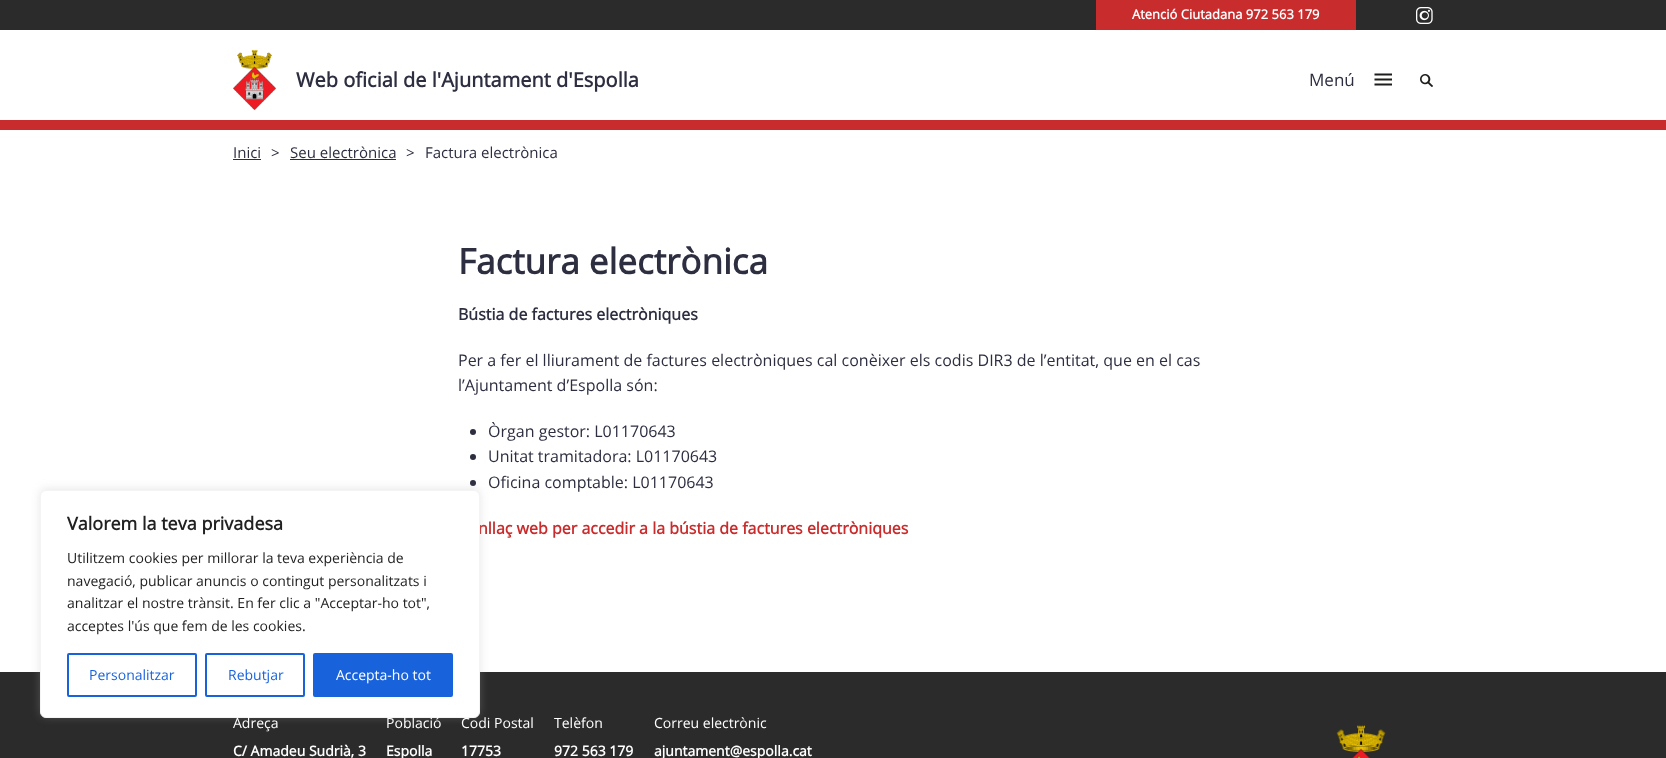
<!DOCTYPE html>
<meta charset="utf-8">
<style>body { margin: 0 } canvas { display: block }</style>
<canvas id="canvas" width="1666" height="758"></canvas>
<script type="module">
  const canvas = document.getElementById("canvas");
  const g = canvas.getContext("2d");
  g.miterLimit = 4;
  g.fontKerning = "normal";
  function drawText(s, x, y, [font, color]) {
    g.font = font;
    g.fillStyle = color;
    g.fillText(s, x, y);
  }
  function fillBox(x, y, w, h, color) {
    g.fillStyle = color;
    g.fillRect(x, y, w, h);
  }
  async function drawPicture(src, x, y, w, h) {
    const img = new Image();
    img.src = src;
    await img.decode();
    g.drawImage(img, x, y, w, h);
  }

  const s1 = ["bold 13px Open Sans", "#FFFFFF"];
  const s2 = ["bold 20px Open Sans", "#2D2E40"];
  const s3 = ["17px Open Sans", "#2D2E40"];
  const s4 = ["15px Open Sans", "#2D2E40"];
  const s5 = ["bold 35px Open Sans", "#2D2E40"];
  const s6 = ["bold 16px Open Sans", "#2D2E40"];
  const s7 = ["16px Open Sans", "#2D2E40"];
  const s8 = ["bold 16px Open Sans", "#C92C2C"];
  const s9 = ["bold 18px Open Sans", "#212121"];
  const s10 = ["14px Open Sans", "#212121"];
  const s11 = ["14px Open Sans", "#1863DC"];
  const s12 = ["14px Open Sans", "#FFFFFF"];
  const s13 = ["bold 14px Open Sans", "#FFFFFF"];

  fillBox(0, 0, 1666, 758, "#FFFFFF");
  fillBox(0, 120, 1666, 10, "#C92C2C");
  fillBox(0, 0, 1666, 30, "#2B2B2B");
  fillBox(1096, 0, 260, 30, "#C92C2C");
  drawText("Atenció Ciutadana 972 563 179", 1132, 19, s1);
  await drawPicture("pic1.png", 1416, 7, 17, 17);
  await drawPicture("pic2.png", 233, 49, 43, 61);
  drawText("Web oficial de l'Ajuntament d'Espolla", 296, 87, s2);
  drawText("Menú", 1309, 86, s3);
  g.beginPath();
  g.moveTo(1374.5, 74.5);
  g.lineTo(1392, 74.5);
  g.moveTo(1374.5, 79.5);
  g.lineTo(1392, 79.5);
  g.moveTo(1374.5, 84.5);
  g.lineTo(1392, 84.5);
  g.strokeStyle = "#1D1D1B";
  g.lineWidth = 2;
  g.stroke();
  await drawPicture("pic3.png", 1420, 74, 13, 13);
  drawText("Inici", 233, 158, s4);
  fillBox(233, 159, 28, 1, "#2D2E40");
  drawText(">", 271, 158, s4);
  drawText("Seu electrònica", 290, 158, s4);
  fillBox(290, 159, 106, 1, "#2D2E40");
  drawText(">", 406, 158, s4);
  drawText("Factura electrònica", 425, 158, s4);
  drawText("Factura electrònica", 458, 274, s5);
  drawText("Bústia de factures electròniques", 458, 320, s6);
  drawText("Per a fer el lliurament de factures electròniques cal conèixer els codis DIR3 de l’entitat, que en el cas", 458, 366, s7);
  drawText("l’Ajuntament d’Espolla són:", 458, 391, s7);
  g.beginPath();
  g.arc(473, 432, 3, 0, Math.PI * 2);
  g.fill();
  drawText("Òrgan gestor: L01170643", 488, 437, s7);
  g.beginPath();
  g.arc(473, 457, 3, 0, Math.PI * 2);
  g.fill();
  drawText("Unitat tramitadora: L01170643", 488, 462, s7);
  g.beginPath();
  g.arc(473, 483, 3, 0, Math.PI * 2);
  g.fill();
  drawText("Oficina comptable: L01170643", 488, 488, s7);
  drawText("nllaç web per accedir a la bústia de factures electròniques", 478, 534, s8);
  fillBox(0, 672, 1666, 86, "#2B2B2B");
  g.fillStyle = "rgba(172, 171, 171, 0.3)";
  g.filter = "blur(5px)";
  g.beginPath();
  g.roundRect(40, 489, 440, 228, 6);
  g.fill();
  g.filter = "none";
  g.fillStyle = "#FFFFFF";
  g.beginPath();
  g.roundRect(40.5, 490.5, 439, 227, 5.5);
  g.fill();
  g.strokeStyle = "#F4F4F4";
  g.lineWidth = 1;
  g.stroke();
  drawText("Valorem la teva privadesa", 67, 530, s9);
  drawText("Utilitzem cookies per millorar la teva experiència de", 67, 563, s10);
  drawText("navegació, publicar anuncis o contingut personalitzats i", 67, 586, s10);
  drawText("analitzar el nostre trànsit. En fer clic a \"Acceptar-ho tot\",", 67, 608, s10);
  drawText("acceptes l'ús que fem de les cookies.", 67, 631, s10);
  g.beginPath();
  g.roundRect(68, 654, 128, 42, 1);
  g.strokeStyle = "#1863DC";
  g.lineWidth = 2;
  g.stroke();
  drawText("Personalitzar", 89, 680, s11);
  g.beginPath();
  g.roundRect(206, 654, 98, 42, 1);
  g.stroke();
  drawText("Rebutjar", 228, 680, s11);
  g.beginPath();
  g.roundRect(314, 654, 138, 42, 1);
  g.fill();
  g.stroke();
  drawText("Accepta-ho tot", 336, 680, s12);
  drawText("Adreça", 233, 728, s12);
  drawText("C/ Amadeu Sudrià, 3", 233, 756, s13);
  drawText("Població", 386, 728, s12);
  drawText("Espolla", 386, 756, s13);
  drawText("Codi Postal", 461, 728, s12);
  drawText("17753", 461, 756, s13);
  drawText("Telèfon", 554, 728, s12);
  drawText("972 563 179", 554, 756, s13);
  drawText("Correu electrònic", 654, 728, s12);
  drawText("ajuntament@espolla.cat", 654, 756, s13);
  await drawPicture("pic4.png", 1336, 725, 50, 33);
</script>
